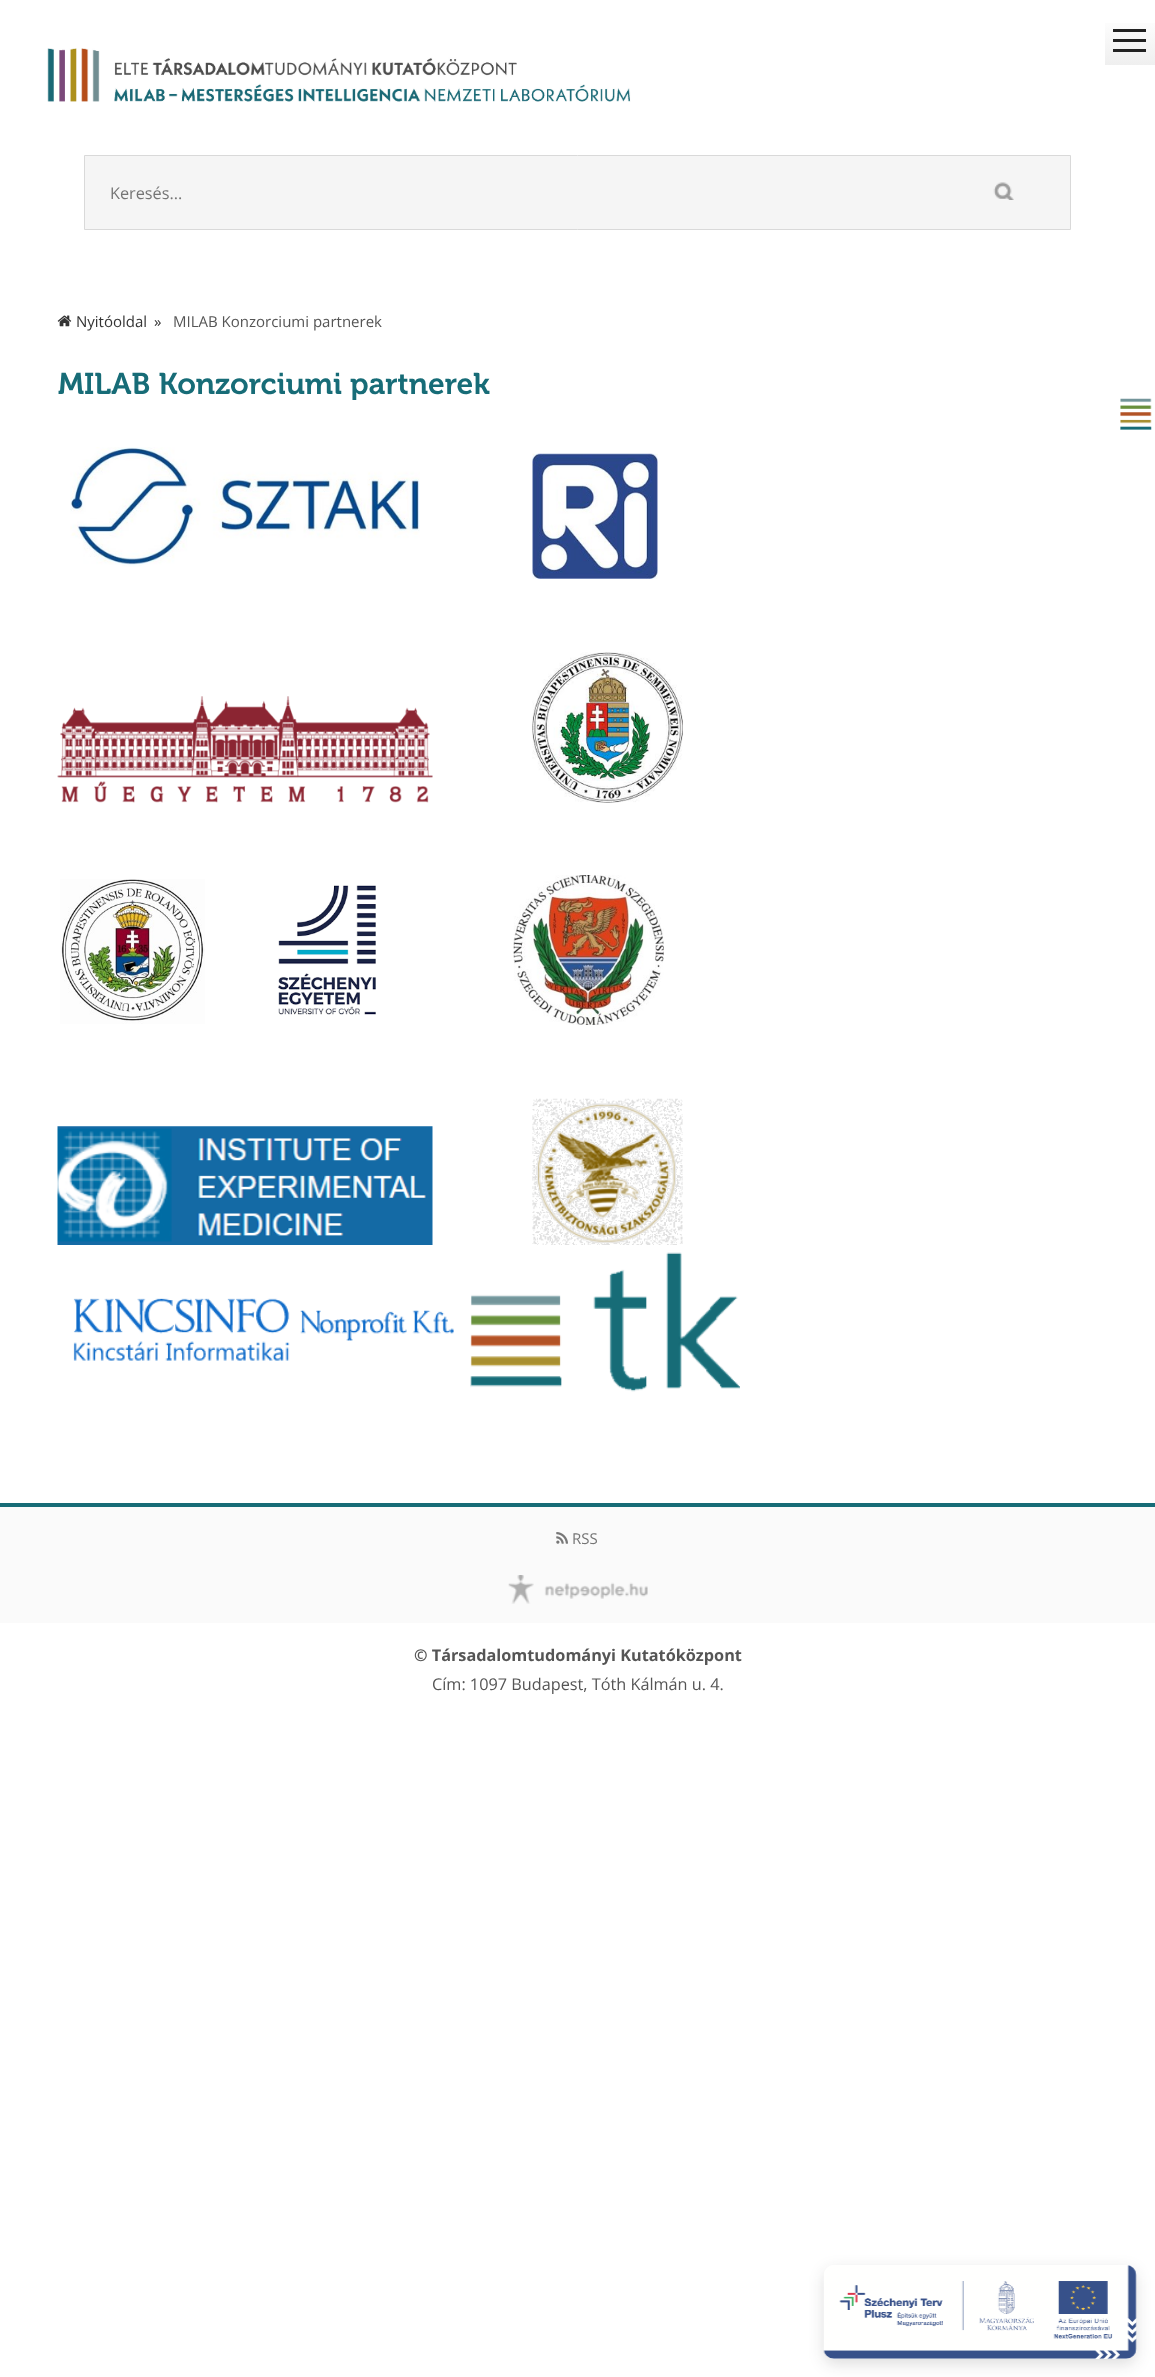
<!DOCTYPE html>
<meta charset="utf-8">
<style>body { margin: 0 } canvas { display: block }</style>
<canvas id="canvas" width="1155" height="2377"></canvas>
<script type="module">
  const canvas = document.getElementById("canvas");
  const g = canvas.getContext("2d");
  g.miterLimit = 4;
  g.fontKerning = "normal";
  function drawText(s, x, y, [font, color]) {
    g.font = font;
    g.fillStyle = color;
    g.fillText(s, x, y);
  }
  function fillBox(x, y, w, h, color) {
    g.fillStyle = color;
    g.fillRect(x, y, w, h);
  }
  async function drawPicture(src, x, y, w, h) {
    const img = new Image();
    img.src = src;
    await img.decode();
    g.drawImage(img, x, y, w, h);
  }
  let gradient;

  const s1 = ["16.25px Open Sans", "#757575"];
  const s2 = ["15px Open Sans", "#333333"];
  const s3 = ["15px Open Sans", "#555555"];
  const s4 = ["30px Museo", "#176C77"];
  const s5 = ["15px Open Sans", "#757575"];
  const s6 = ["bold 16.25px Open Sans", "#555555"];
  const s7 = ["16.25px Open Sans", "#555555"];

  fillBox(0, 0, 1155, 2377, "#FFFFFF");
  gradient = g.createLinearGradient(1130, 15, 1130, 65);
  gradient.addColorStop(0, "#FFFFFF");
  gradient.addColorStop(1, "#EFEFEF");
  g.fillStyle = gradient;
  g.fillRect(1105, 23, 50, 42);
  fillBox(1113, 29, 33, 3, "#222222");
  fillBox(1113, 39, 33, 3, "#222222");
  fillBox(1113, 49, 33, 3, "#222222");
  await drawPicture("pic1.png", 47, 48, 584, 54);
  g.fillStyle = "#F5F5F5";
  g.beginPath();
  g.rect(84.5, 155.5, 986, 74);
  g.fill();
  g.strokeStyle = "#D9D9D9";
  g.stroke();
  drawText("Keresés...", 110, 199, s1);
  await drawPicture("pic2.png", 993, 182, 21, 18);
  await drawPicture("pic3.png", 57, 315, 15, 12);
  drawText("Nyitóoldal", 76, 327, s2);
  drawText("»", 154, 327, s2);
  drawText("MILAB Konzorciumi partnerek", 173, 327, s3);
  drawText("MILAB Konzorciumi partnerek", 58, 394, s4);
  await drawPicture("pic4.png", 70, 447, 350, 120);
  await drawPicture("pic5.png", 532, 453, 126, 126);
  await drawPicture("pic6.png", 57, 696, 376, 107);
  await drawPicture("pic7.png", 532, 652, 151, 151);
  await drawPicture("pic8.png", 60, 879, 145, 145);
  await drawPicture("pic9.png", 278, 885, 98, 130);
  await drawPicture("pic10.png", 513, 875, 151, 150);
  await drawPicture("pic11.png", 57, 1126, 376, 119);
  await drawPicture("pic12.png", 532, 1098, 151, 147);
  await drawPicture("pic13.png", 73, 1298, 381, 63);
  await drawPicture("pic14.png", 470, 1252, 270, 140);
  await drawPicture("pic15.png", 1120, 398, 32, 32);
  g.fillStyle = "#999999";
  g.filter = "blur(0.5px)";
  g.beginPath();
  g.rect(1155, 399, 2, 861);
  g.fill();
  g.filter = "none";
  fillBox(0, 1507, 1155, 116, "#FAFAFA");
  fillBox(0, 1503, 1155, 4, "#176C77");
  await drawPicture("pic16.png", 556, 1532, 12, 12);
  drawText("RSS", 572, 1544, s5);
  await drawPicture("pic17.png", 508, 1575, 140, 29);
  drawText("© Társadalomtudományi Kutatóközpont", 414, 1661, s6);
  drawText("Cím: 1097 Budapest, Tóth Kálmán u. 4.", 432, 1690, s7);
  g.save();
  g.beginPath();
  g.moveTo(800, 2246);
  g.lineTo(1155, 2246);
  g.lineTo(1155, 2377);
  g.lineTo(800, 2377);
  g.closePath();
  g.moveTo(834, 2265);
  g.lineTo(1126, 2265);
  g.bezierCurveTo(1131.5, 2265, 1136, 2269.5, 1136, 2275);
  g.lineTo(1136, 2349);
  g.bezierCurveTo(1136, 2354.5, 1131.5, 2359, 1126, 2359);
  g.lineTo(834, 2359);
  g.bezierCurveTo(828.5, 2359, 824, 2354.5, 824, 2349);
  g.lineTo(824, 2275);
  g.bezierCurveTo(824, 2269.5, 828.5, 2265, 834, 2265);
  g.closePath();
  g.clip("evenodd");
  g.fillStyle = "rgba(26, 26, 26, 0.15)";
  g.filter = "blur(7.5px)";
  g.beginPath();
  g.roundRect(824, 2270, 312, 94, 10);
  g.fill();
  g.filter = "none";
  g.restore();
  await drawPicture("pic18.png", 823, 2265, 314, 94);
</script>
